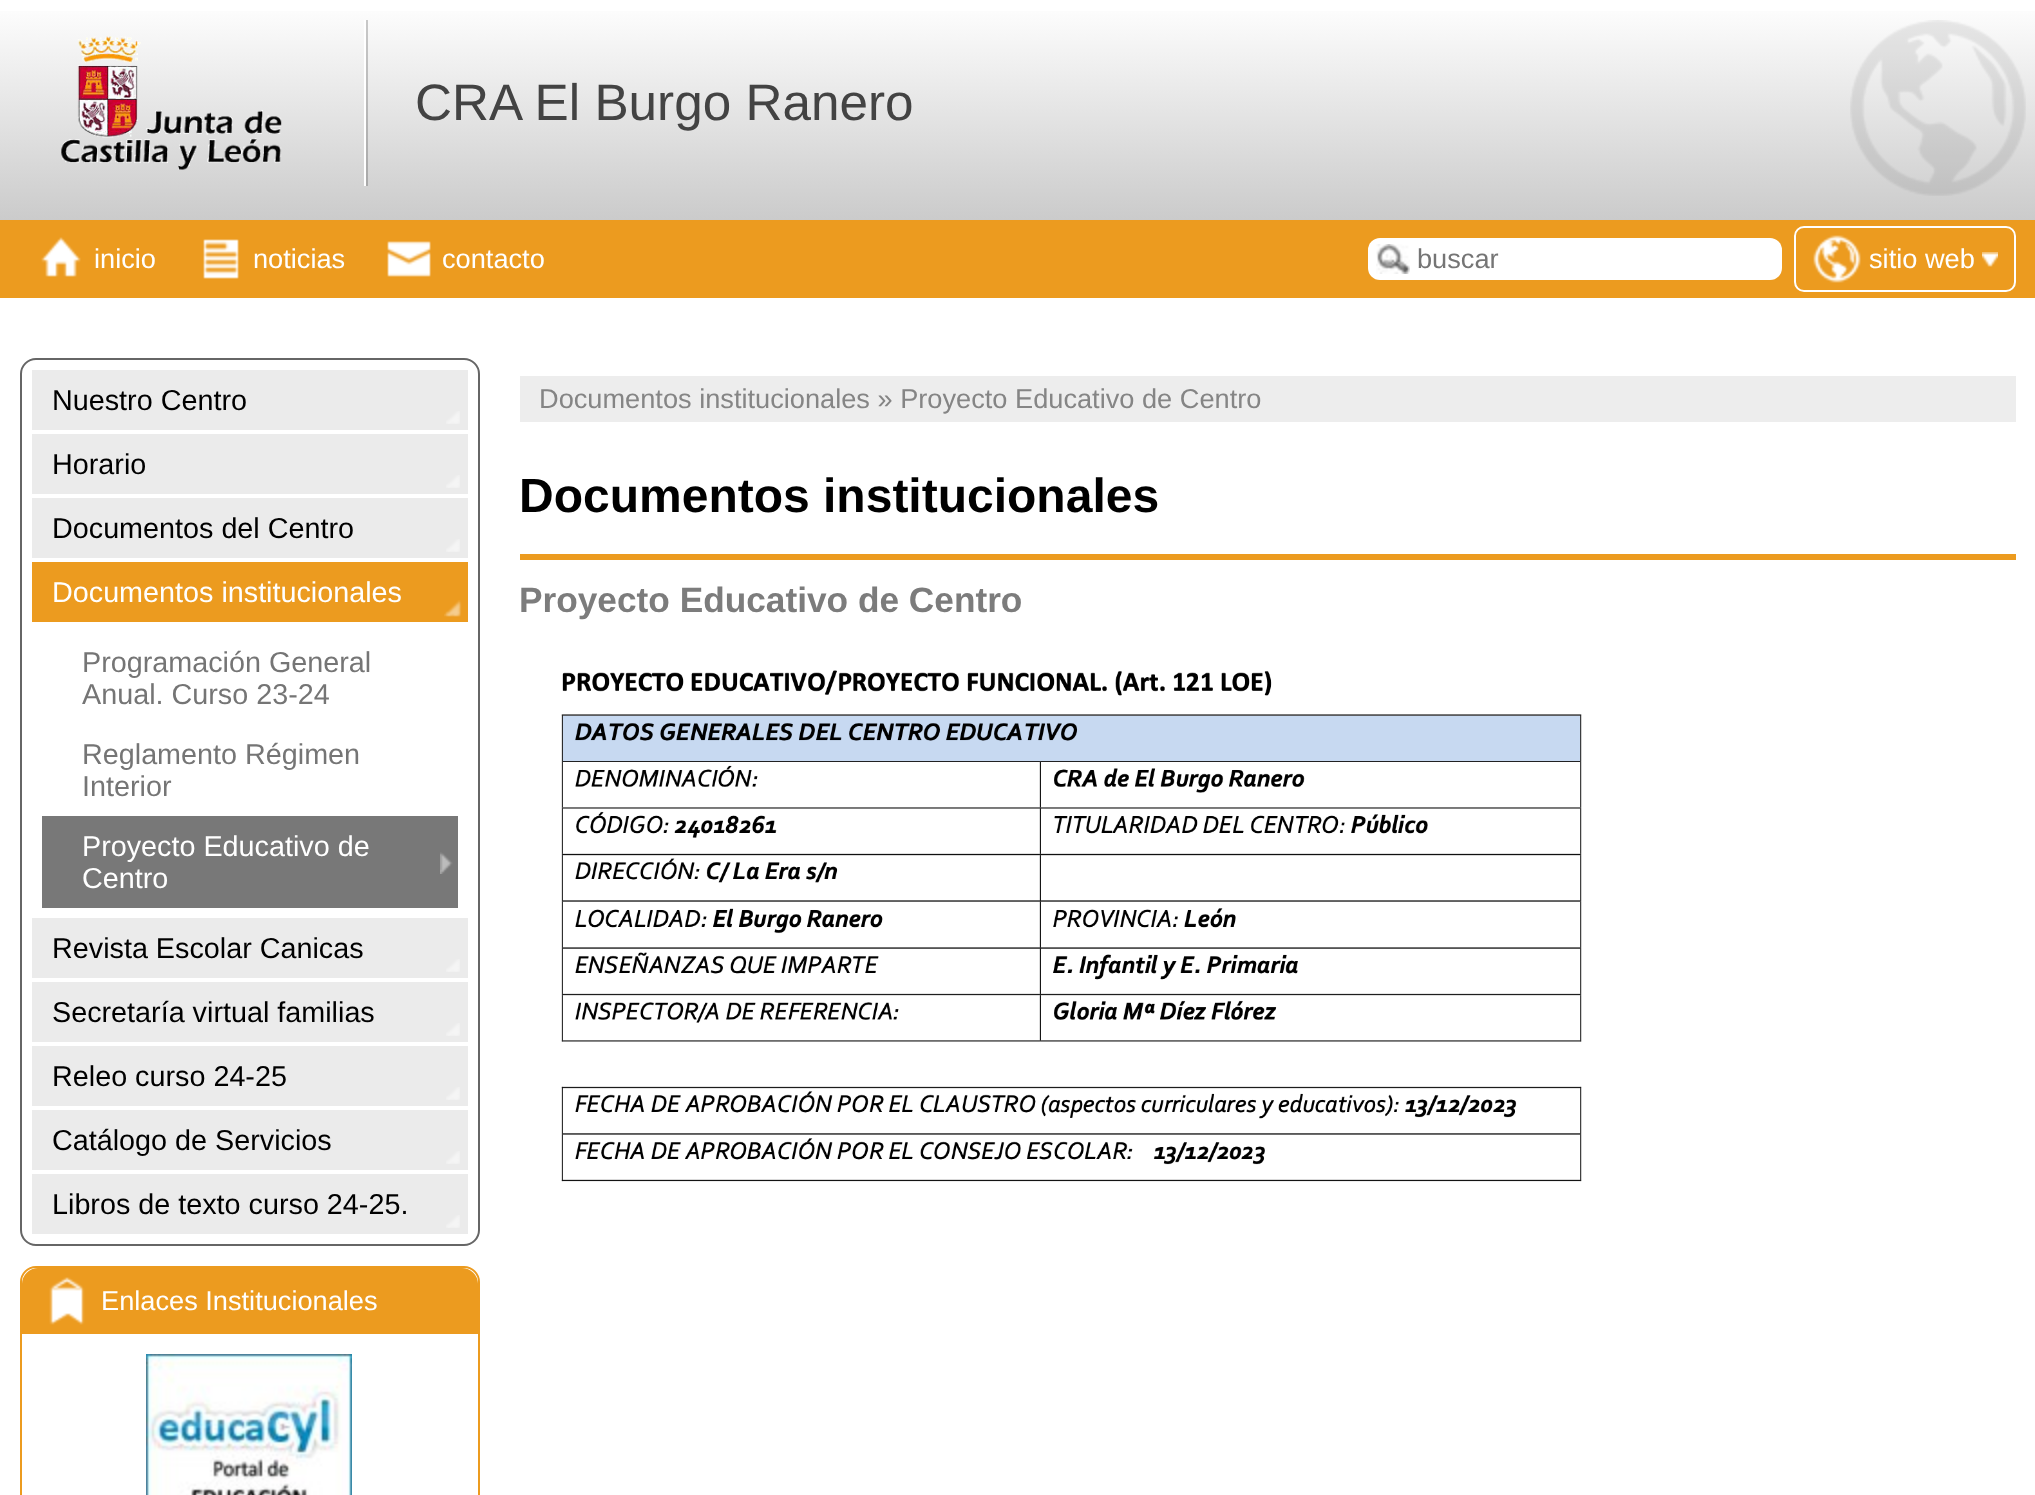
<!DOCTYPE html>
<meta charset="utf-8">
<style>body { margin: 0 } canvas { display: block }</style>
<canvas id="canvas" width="2035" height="1495"></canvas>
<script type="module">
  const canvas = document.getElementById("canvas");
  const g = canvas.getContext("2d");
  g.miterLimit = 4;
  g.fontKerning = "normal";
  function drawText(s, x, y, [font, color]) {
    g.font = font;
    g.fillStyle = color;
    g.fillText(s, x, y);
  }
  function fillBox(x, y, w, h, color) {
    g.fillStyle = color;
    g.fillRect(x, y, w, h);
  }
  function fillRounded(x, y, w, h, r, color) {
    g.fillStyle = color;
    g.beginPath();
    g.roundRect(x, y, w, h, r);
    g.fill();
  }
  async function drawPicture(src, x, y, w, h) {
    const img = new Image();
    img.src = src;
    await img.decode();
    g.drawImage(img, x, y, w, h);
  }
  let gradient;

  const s1 = ["51.25px Liberation Sans", "#434343"];
  const s2 = ["27.2px Liberation Sans", "#FFFFFF"];
  const s3 = ["27.2px Liberation Sans", "#757575"];
  const s4 = ["28.75px Liberation Sans", "#000000"];
  const s5 = ["28.75px Liberation Sans", "#FFFFFF"];
  const s6 = ["28.75px Liberation Sans", "#757575"];
  const s7 = ["27.2px Liberation Sans", "#858585"];
  const s8 = ["bold 48px Liberation Sans", "#000000"];
  const s9 = ["bold 35.25px Liberation Sans", "#7C7C7C"];

  fillBox(0, 0, 2035, 1495, "#FFFFFF");
  gradient = g.createLinearGradient(1018, 0, 1018, 220);
  gradient.addColorStop(0, "#FFFFFF");
  gradient.addColorStop(1, "#CBCBCB");
  g.fillStyle = gradient;
  g.fillRect(0, 11, 2035, 209);
  gradient = g.createLinearGradient(1018, 0, 1018, 220);
  gradient.addColorStop(0, "#CCCCCC");
  gradient.addColorStop(1, "#A2A2A2");
  g.fillStyle = gradient;
  g.fillRect(366, 20, 2, 166);
  await drawPicture("pic1.png", 1850, 20, 176, 176);
  fillBox(364, 20, 2, 166, "#FFFFFF");
  await drawPicture("pic2.png", 61, 36, 221, 134);
  drawText("CRA El Burgo Ranero", 415, 120, s1);
  fillBox(0, 220, 2035, 78, "#EC9B1F");
  await drawPicture("pic3.png", 41, 237, 40, 40);
  drawText("inicio", 94, 268, s2);
  await drawPicture("pic4.png", 203, 239, 36, 40);
  drawText("noticias", 253, 268, s2);
  await drawPicture("pic5.png", 387, 241, 44, 36);
  drawText("contacto", 442, 268, s2);
  fillRounded(1368, 238, 414, 42, 12, "#FFFFFF");
  await drawPicture("pic6.png", 1376, 244, 34, 30);
  drawText("buscar", 1417, 268, s3);
  g.beginPath();
  g.roundRect(1795, 227, 220, 64, 9);
  g.strokeStyle = "#FFFFFF";
  g.lineWidth = 2;
  g.stroke();
  await drawPicture("pic7.png", 1813, 235, 48, 48);
  drawText("sitio web", 1869, 268, s2);
  await drawPicture("pic8.png", 1982, 252, 16, 15);
  g.beginPath();
  g.roundRect(21, 359, 458, 886, 15);
  g.strokeStyle = "#666666";
  g.stroke();
  fillBox(32, 370, 436, 60, "#EBEBEB");
  await drawPicture("pic9.png", 446, 411, 14, 13);
  drawText("Nuestro Centro", 52, 410, s4);
  fillBox(32, 434, 436, 60, "#EBEBEB");
  await drawPicture("pic9.png", 446, 475, 14, 13);
  drawText("Horario", 52, 474, s4);
  fillBox(32, 498, 436, 60, "#EBEBEB");
  await drawPicture("pic9.png", 446, 539, 14, 13);
  drawText("Documentos del Centro", 52, 538, s4);
  fillBox(32, 562, 436, 60, "#EC9B1F");
  await drawPicture("pic10.png", 444, 600, 18, 17);
  drawText("Documentos institucionales", 52, 602, s5);
  drawText("Programación General", 82, 672, s6);
  drawText("Anual. Curso 23-24", 82, 704, s6);
  drawText("Reglamento Régimen", 82, 764, s6);
  drawText("Interior", 82, 796, s6);
  fillBox(42, 816, 416, 92, "#787878");
  await drawPicture("pic11.png", 440, 852, 13, 22);
  drawText("Proyecto Educativo de", 82, 856, s5);
  drawText("Centro", 82, 888, s5);
  fillBox(32, 918, 436, 60, "#EBEBEB");
  await drawPicture("pic9.png", 446, 959, 14, 13);
  drawText("Revista Escolar Canicas", 52, 958, s4);
  fillBox(32, 982, 436, 60, "#EBEBEB");
  await drawPicture("pic9.png", 446, 1023, 14, 13);
  drawText("Secretaría virtual familias", 52, 1022, s4);
  fillBox(32, 1046, 436, 60, "#EBEBEB");
  await drawPicture("pic9.png", 446, 1087, 14, 13);
  drawText("Releo curso 24-25", 52, 1086, s4);
  fillBox(32, 1110, 436, 60, "#EBEBEB");
  await drawPicture("pic9.png", 446, 1151, 14, 13);
  drawText("Catálogo de Servicios", 52, 1150, s4);
  fillBox(32, 1174, 436, 60, "#EBEBEB");
  await drawPicture("pic9.png", 446, 1215, 14, 13);
  drawText("Libros de texto curso 24-25.", 52, 1214, s4);
  g.beginPath();
  g.roundRect(21, 1267, 458, 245, 15);
  g.strokeStyle = "#EC9B1F";
  g.stroke();
  g.save();
  g.beginPath();
  g.roundRect(22, 1268, 456, 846, 14);
  g.clip();
  g.fillStyle = "#EC9B1F";
  g.beginPath();
  g.roundRect(22, 1268, 456, 66, [16, 16, 0, 0]);
  g.fill();
  g.restore();
  await drawPicture("pic12.png", 49, 1277, 36, 48);
  drawText("Enlaces Institucionales", 101, 1310, s2);
  await drawPicture("pic13.png", 146, 1354, 206, 141);
  fillBox(520, 376, 1496, 46, "#EDEDED");
  drawText("Documentos institucionales » Proyecto Educativo de Centro", 539, 408, s7);
  fillBox(520, 554, 1496, 6, "#EC9B1F");
  drawText("Documentos institucionales", 519, 512, s8);
  drawText("Proyecto Educativo de Centro", 519, 612, s9);
  await drawPicture("pic14.png", 561, 670, 1021, 512);
</script>
